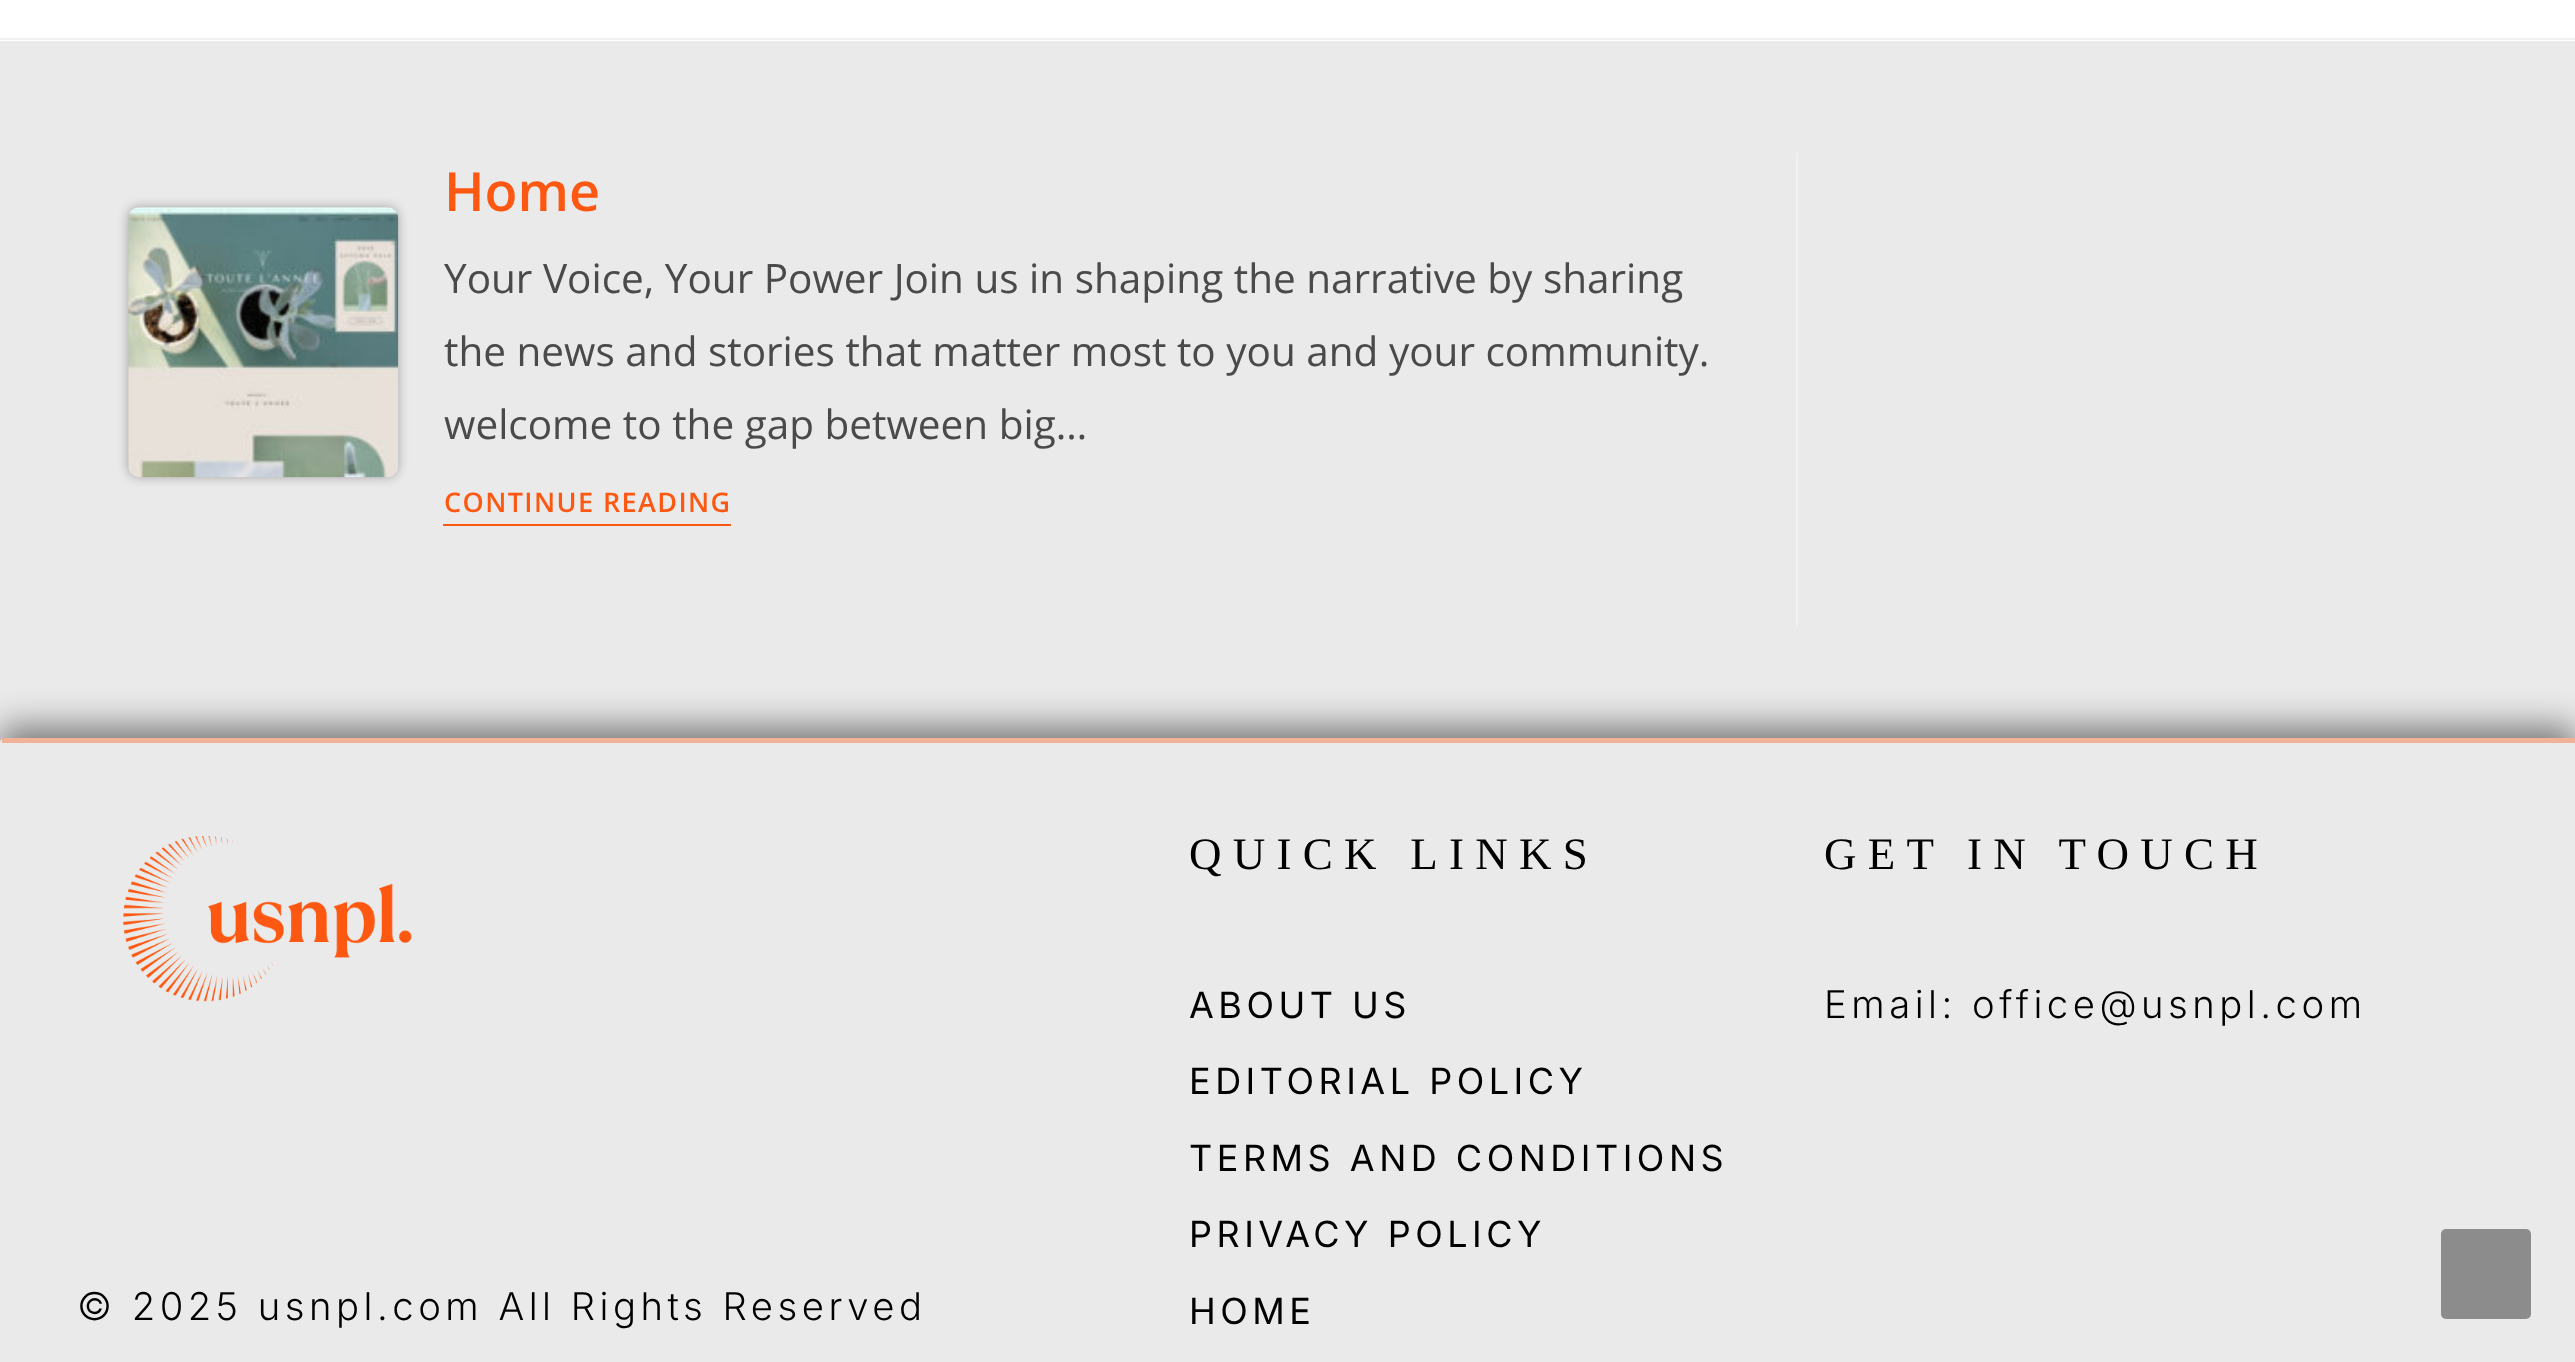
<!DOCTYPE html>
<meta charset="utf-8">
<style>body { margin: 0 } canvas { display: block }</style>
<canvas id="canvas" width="2575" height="1362"></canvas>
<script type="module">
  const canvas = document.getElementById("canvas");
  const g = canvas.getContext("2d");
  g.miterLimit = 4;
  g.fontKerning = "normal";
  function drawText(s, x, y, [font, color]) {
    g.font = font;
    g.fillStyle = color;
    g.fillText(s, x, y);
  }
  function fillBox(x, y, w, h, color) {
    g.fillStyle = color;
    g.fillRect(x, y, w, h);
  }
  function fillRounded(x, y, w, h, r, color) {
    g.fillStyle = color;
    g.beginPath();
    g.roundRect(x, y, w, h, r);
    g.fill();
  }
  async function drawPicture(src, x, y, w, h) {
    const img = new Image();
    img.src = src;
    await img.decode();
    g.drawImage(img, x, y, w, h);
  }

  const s1 = ["600 54px Open Sans", "#FD5812"];
  const s2 = ["40.5px Open Sans", "#4A4A4A"];
  const s3 = ["600 27px Open Sans", "#FD5812"];
  const s4 = ["45px Liberation Serif", "#000000"];
  const s5 = ["36px Inter", "#000000"];
  const s6 = ["300 38.25px Inter", "#000000"];

  fillBox(0, 0, 2575, 1362, "#EAEAEA");
  fillBox(0, 0, 2575, 41, "#FFFFFF");
  fillBox(0, 38, 2575, 2, "#F1F1F1");
  fillBox(1796, 153, 2, 473, "#F1F1F1");
  g.fillStyle = "rgba(0, 0, 0, 0.3)";
  g.filter = "blur(5.5px)";
  g.beginPath();
  g.roundRect(128, 207, 270, 270, 11);
  g.fill();
  g.filter = "none";
  await drawPicture("pic1.png", 128, 207, 271, 271);
  drawText("Home", 444, 211, s1);
  drawText("Your Voice, Your Power Join us in shaping the narrative by sharing", 444, 293, s2);
  drawText("the news and stories that matter most to you and your community.", 444, 366, s2);
  drawText("welcome to the gap between big…", 444, 439, s2);
  fillBox(443, 524, 288, 2, "#FD5812");
  g.letterSpacing = "1.4px";
  drawText("CONTINUE READING", 444, 512, s3);
  g.fillStyle = "rgba(0, 0, 0, 0.5)";
  g.filter = "blur(17px)";
  g.beginPath();
  g.roundRect(0, 727, 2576, 625, 5);
  g.fill();
  g.filter = "none";
  g.fillStyle = "#EAEAEA";
  g.beginPath();
  g.moveTo(5, 738);
  g.lineTo(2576, 738);
  g.lineTo(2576, 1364);
  g.lineTo(0, 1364);
  g.lineTo(0, 743);
  g.bezierCurveTo(0, 740, 2, 738, 5, 738);
  g.closePath();
  g.fill();
  fillBox(2, 738, 2573, 5, "rgba(253, 88, 18, 0.38)");
  g.letterSpacing = "11.25px";
  drawText("QUICK LINKS", 1189, 869, s4);
  g.letterSpacing = "4.5px";
  drawText("ABOUT US", 1189, 1018, s5);
  drawText("EDITORIAL POLICY", 1189, 1094, s5);
  drawText("TERMS AND CONDITIONS", 1189, 1171, s5);
  drawText("PRIVACY POLICY", 1189, 1247, s5);
  drawText("HOME", 1189, 1324, s5);
  g.letterSpacing = "11.25px";
  drawText("GET IN TOUCH", 1824, 869, s4);
  g.letterSpacing = "4.5px";
  drawText("Email: office@usnpl.com", 1824, 1018, s6);
  await drawPicture("pic2.png", 123, 836, 289, 166);
  drawText("© 2025 usnpl.com All Rights Reserved", 77, 1320, s6);
  fillRounded(2441, 1229, 90, 90, 5, "#8C8C8C");
</script>
